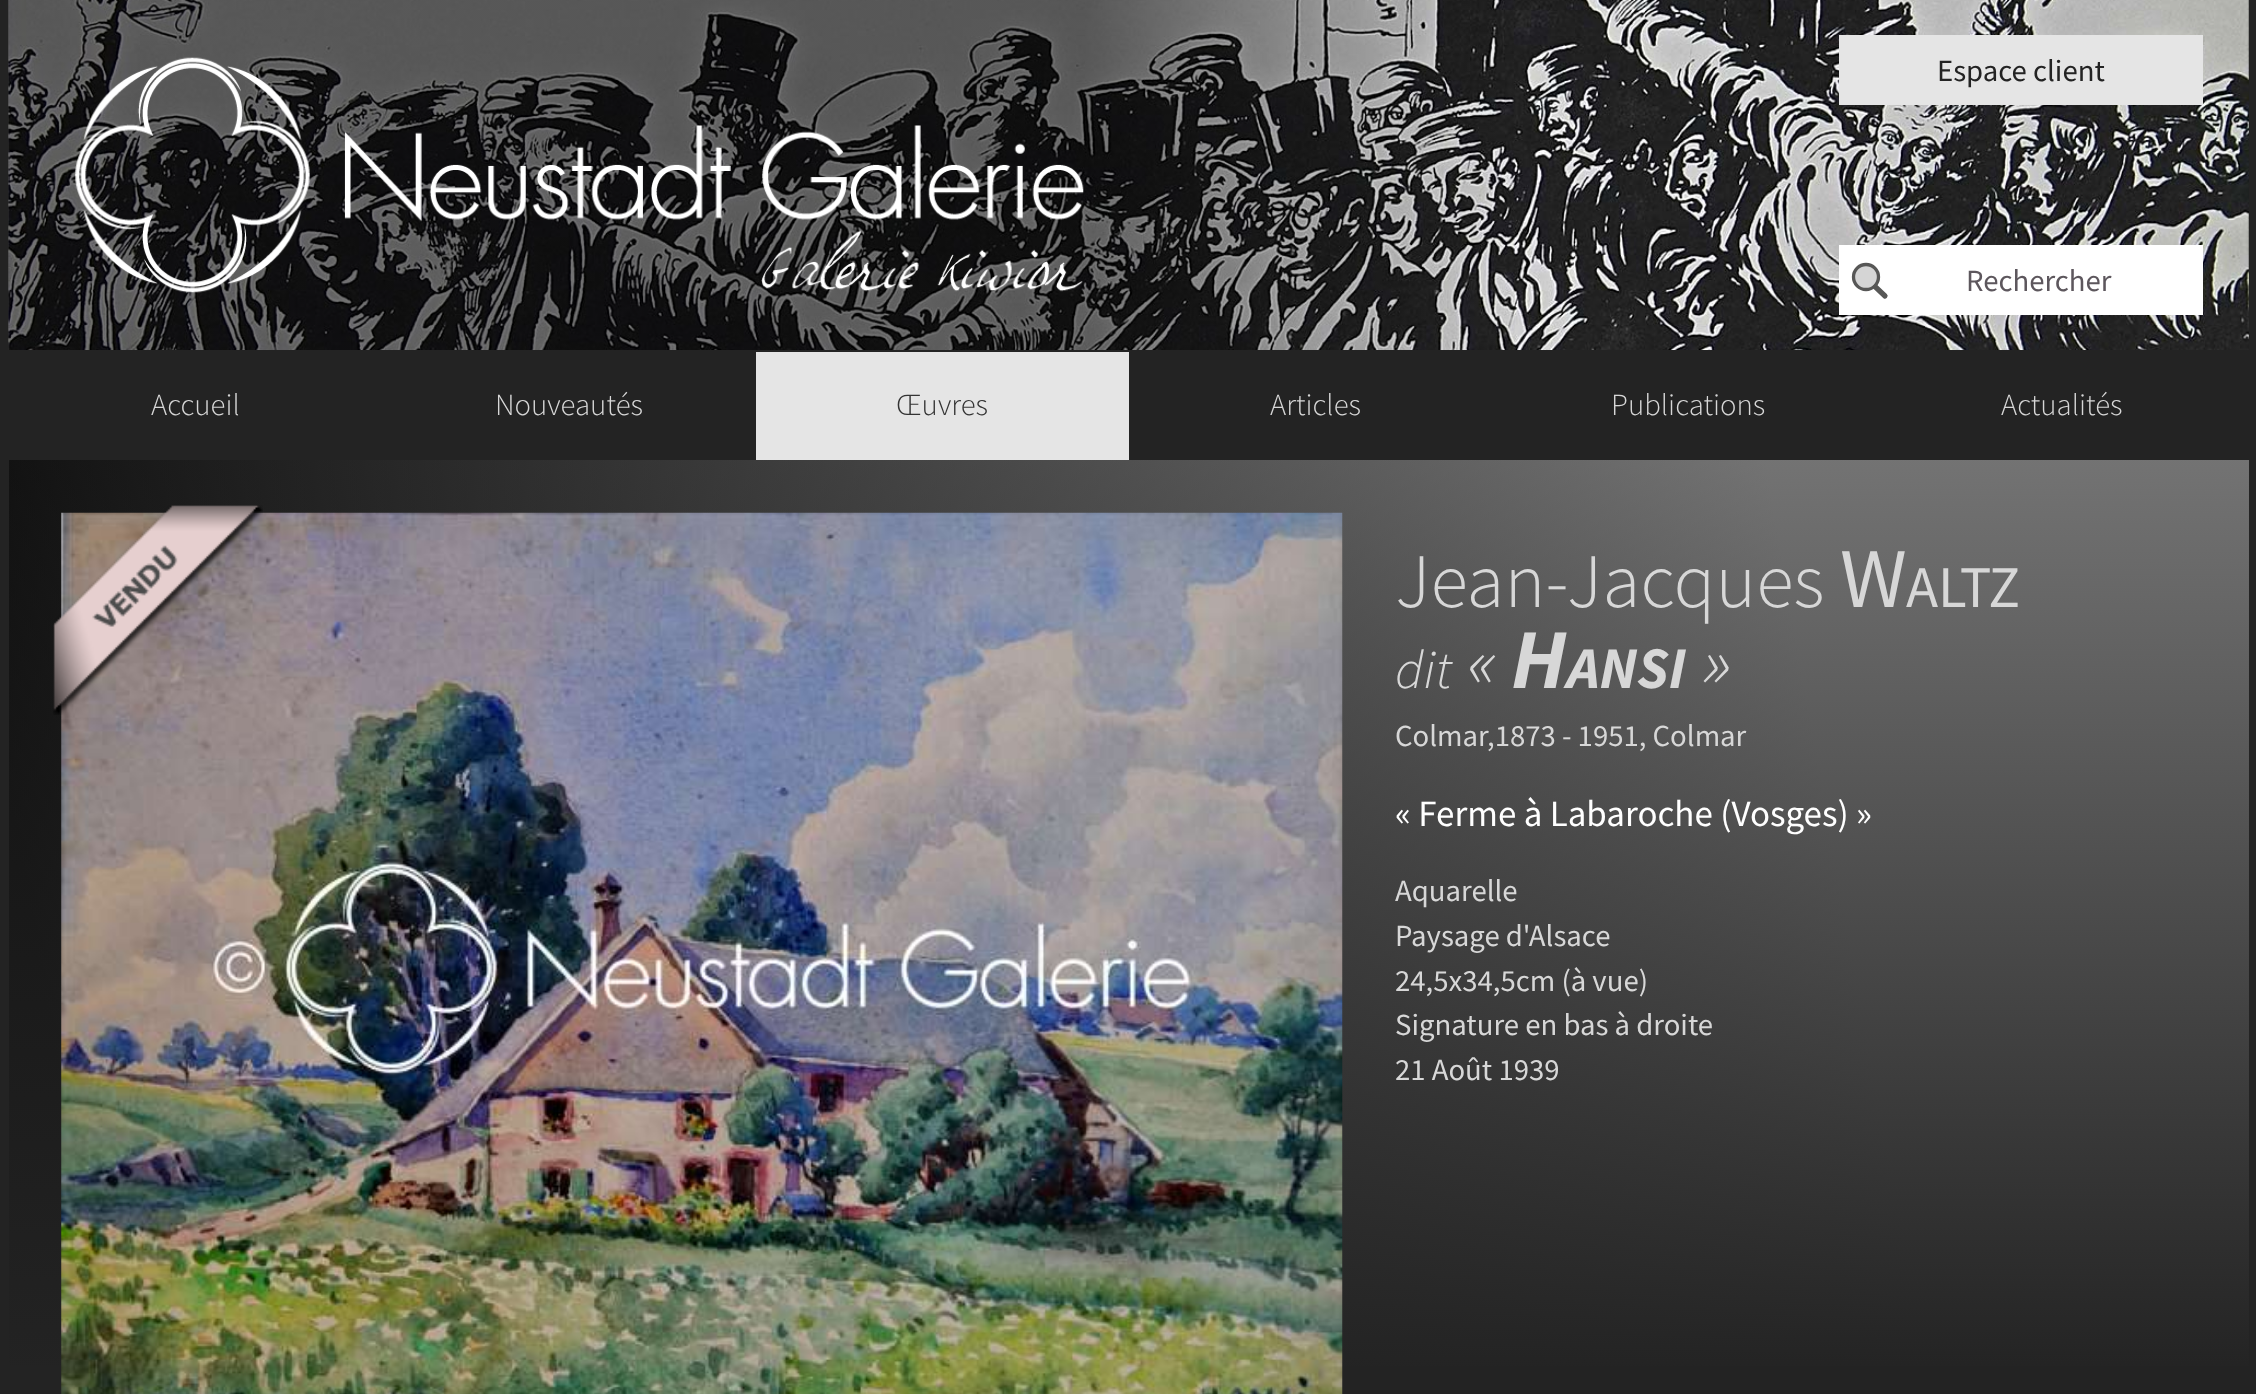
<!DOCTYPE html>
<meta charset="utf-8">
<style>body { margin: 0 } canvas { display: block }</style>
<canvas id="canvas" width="2256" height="1394"></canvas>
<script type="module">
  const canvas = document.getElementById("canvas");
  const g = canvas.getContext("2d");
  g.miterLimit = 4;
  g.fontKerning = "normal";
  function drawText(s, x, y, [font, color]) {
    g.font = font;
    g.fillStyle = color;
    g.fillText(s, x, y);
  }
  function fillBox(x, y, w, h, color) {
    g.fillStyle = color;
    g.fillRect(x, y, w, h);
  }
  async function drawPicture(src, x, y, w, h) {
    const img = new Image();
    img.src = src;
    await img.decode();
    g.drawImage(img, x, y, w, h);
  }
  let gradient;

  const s1 = ["30.75px Source Sans Pro", "#232323"];
  const s2 = ["30.75px Source Sans Pro", "#5D575D"];
  const s3 = ["300 30.75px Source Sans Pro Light", "#D7D7D7"];
  const s4 = ["300 30.75px Source Sans Pro Light", "#333333"];
  const s5 = ["300 77px Source Sans Pro Light", "#D7D7D7"];
  const s6 = ["85px Source Sans Pro", "#D7D7D7"];
  const s7 = ["59px Source Sans Pro", "#D7D7D7"];
  const s8 = ["italic 300 54px Source Sans Pro Light", "#D7D7D7"];
  const s9 = ["italic 300 77px Source Sans Pro Light", "#D7D7D7"];
  const s10 = ["italic bold 85px Source Sans Pro", "#D7D7D7"];
  const s11 = ["italic bold 59px Source Sans Pro", "#D7D7D7"];
  const s12 = ["30.75px Source Sans Pro", "#D7D7D7"];
  const s13 = ["37px Source Sans Pro", "#FFFFFF"];

  fillBox(0, 0, 2256, 1394, "#232323");
  await drawPicture("pic1.png", 8, 0, 2241, 350);
  gradient = g.createLinearGradient(9, 175, 2249, 175);
  gradient.addColorStop(0.48, "rgba(0, 0, 0, 0.55)");
  gradient.addColorStop(0.68, "rgba(0, 0, 0, 0)");
  g.fillStyle = gradient;
  g.fillRect(9, 0, 1506, 350);
  await drawPicture("pic2.png", 75, 57, 1009, 236);
  fillBox(1839, 35, 364, 70, "#E5E5E5");
  drawText("Espace client", 1937, 81, s1);
  fillBox(1839, 245, 364, 70, "#FFFFFF");
  g.fillStyle = "#D5D5D5";
  g.beginPath();
  g.arc(1866, 277, 12.5, 0, Math.PI * 2);
  g.fill();
  g.strokeStyle = "#575756";
  g.lineWidth = 3.3;
  g.stroke();
  g.beginPath();
  g.moveTo(1875.5, 287);
  g.lineTo(1885, 296);
  g.lineWidth = 5.2;
  g.lineCap = "round";
  g.stroke();
  drawText("Rechercher", 1966, 291, s2);
  drawText("Accueil", 151, 415, s3);
  drawText("Nouveautés", 495, 415, s3);
  fillBox(756, 352, 373, 108, "#E5E5E5");
  drawText("Œuvres", 896, 415, s4);
  drawText("Articles", 1270, 415, s3);
  drawText("Publications", 1611, 415, s3);
  drawText("Actualités", 2001, 415, s3);
  gradient = g.createLinearGradient(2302, 762, -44, 1175);
  gradient.addColorStop(0.2, "#A8A8A8");
  gradient.addColorStop(0.95, "#020202");
  g.fillStyle = gradient;
  g.fillRect(9, 460, 2240, 906);
  gradient = g.createLinearGradient(1129, 460, 1129, 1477);
  gradient.addColorStop(0, "rgba(35, 35, 35, 0.4)");
  gradient.addColorStop(0.9, "#232323");
  g.fillStyle = gradient;
  g.fillRect(9, 460, 2240, 906);
  await drawPicture("pic4.png", 61, 512, 1282, 882);
  await drawPicture("pic3.png", 53, 505, 210, 210);
  drawText("Jean-Jacques", 1395, 607, s5);
  drawText("W", 1840, 607, s6);
  drawText("ALTZ", 1906, 607, s7);
  drawText("dit", 1395, 688, s8);
  drawText("«", 1467, 688, s9);
  drawText("H", 1511, 688, s10);
  drawText("ANSI", 1567, 688, s11);
  drawText("»", 1702, 688, s9);
  drawText("Colmar,1873 - 1951, Colmar", 1395, 746, s12);
  drawText("« Ferme à Labaroche (Vosges) »", 1395, 826, s13);
  drawText("Aquarelle", 1395, 901, s12);
  drawText("Paysage d'Alsace", 1395, 946, s12);
  drawText("24,5x34,5cm (à vue)", 1395, 991, s12);
  drawText("Signature en bas à droite", 1395, 1035, s12);
  drawText("21 Août 1939", 1395, 1080, s12);
</script>
